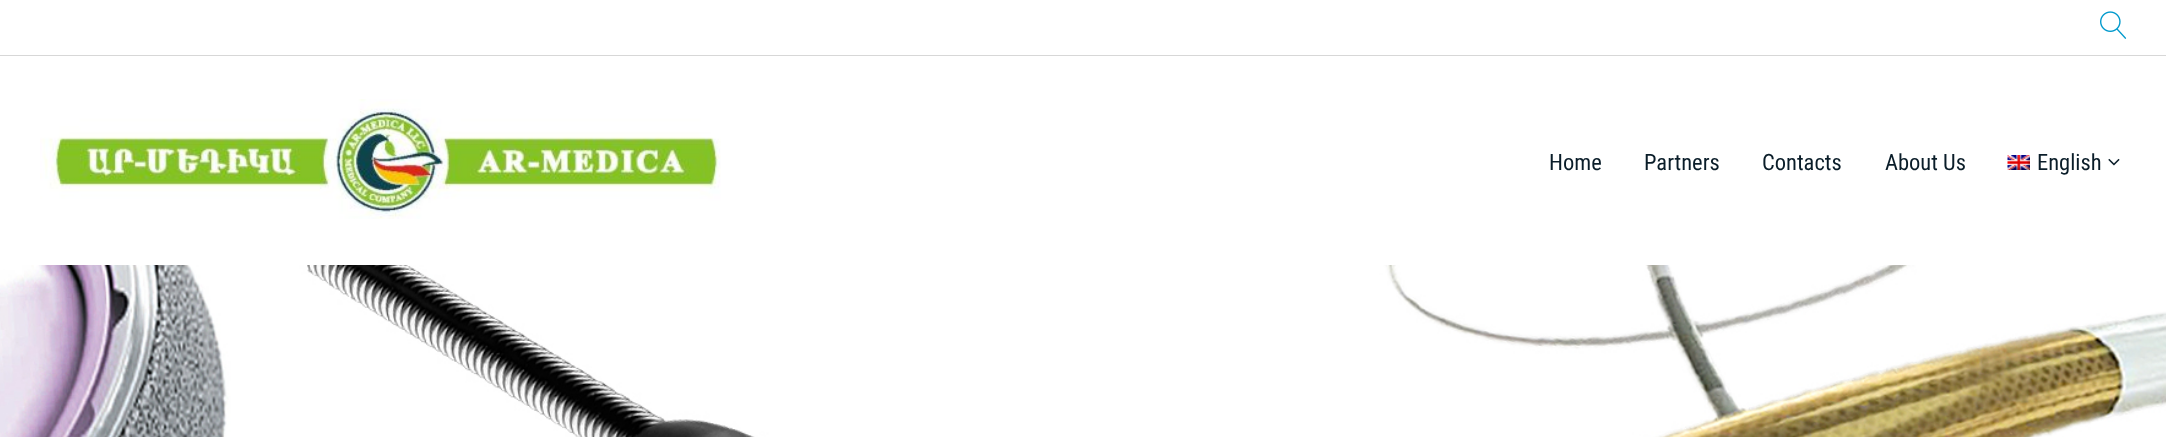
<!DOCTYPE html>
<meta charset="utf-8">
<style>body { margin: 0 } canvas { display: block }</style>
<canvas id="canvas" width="2166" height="437"></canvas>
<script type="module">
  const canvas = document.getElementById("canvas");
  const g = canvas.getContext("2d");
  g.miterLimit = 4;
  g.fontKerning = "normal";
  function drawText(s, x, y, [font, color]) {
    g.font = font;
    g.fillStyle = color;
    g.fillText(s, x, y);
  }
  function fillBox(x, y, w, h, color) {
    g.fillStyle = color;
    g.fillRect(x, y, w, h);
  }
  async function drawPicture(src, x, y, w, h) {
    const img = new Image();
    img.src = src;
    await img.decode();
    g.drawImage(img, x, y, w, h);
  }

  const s1 = ["22.5px Roboto Condensed", "#0A1D29"];

  fillBox(0, 0, 2166, 437, "#FFFFFF");
  fillBox(0, 55, 2166, 1, "#D7D7D7");
  await drawPicture("pic1.png", 2100, 11, 27, 28);
  await drawPicture("pic2.png", 40, 99, 681, 120);
  drawText("Home", 1549, 170, s1);
  drawText("Partners", 1644, 170, s1);
  drawText("Contacts", 1762, 170, s1);
  drawText("About Us", 1885, 170, s1);
  await drawPicture("pic3.png", 2007, 155, 23, 15);
  drawText("English", 2037, 170, s1);
  await drawPicture("pic4.png", 2108, 158, 12, 8);
  await drawPicture("pic5.png", 0, 265, 2166, 172);
</script>
